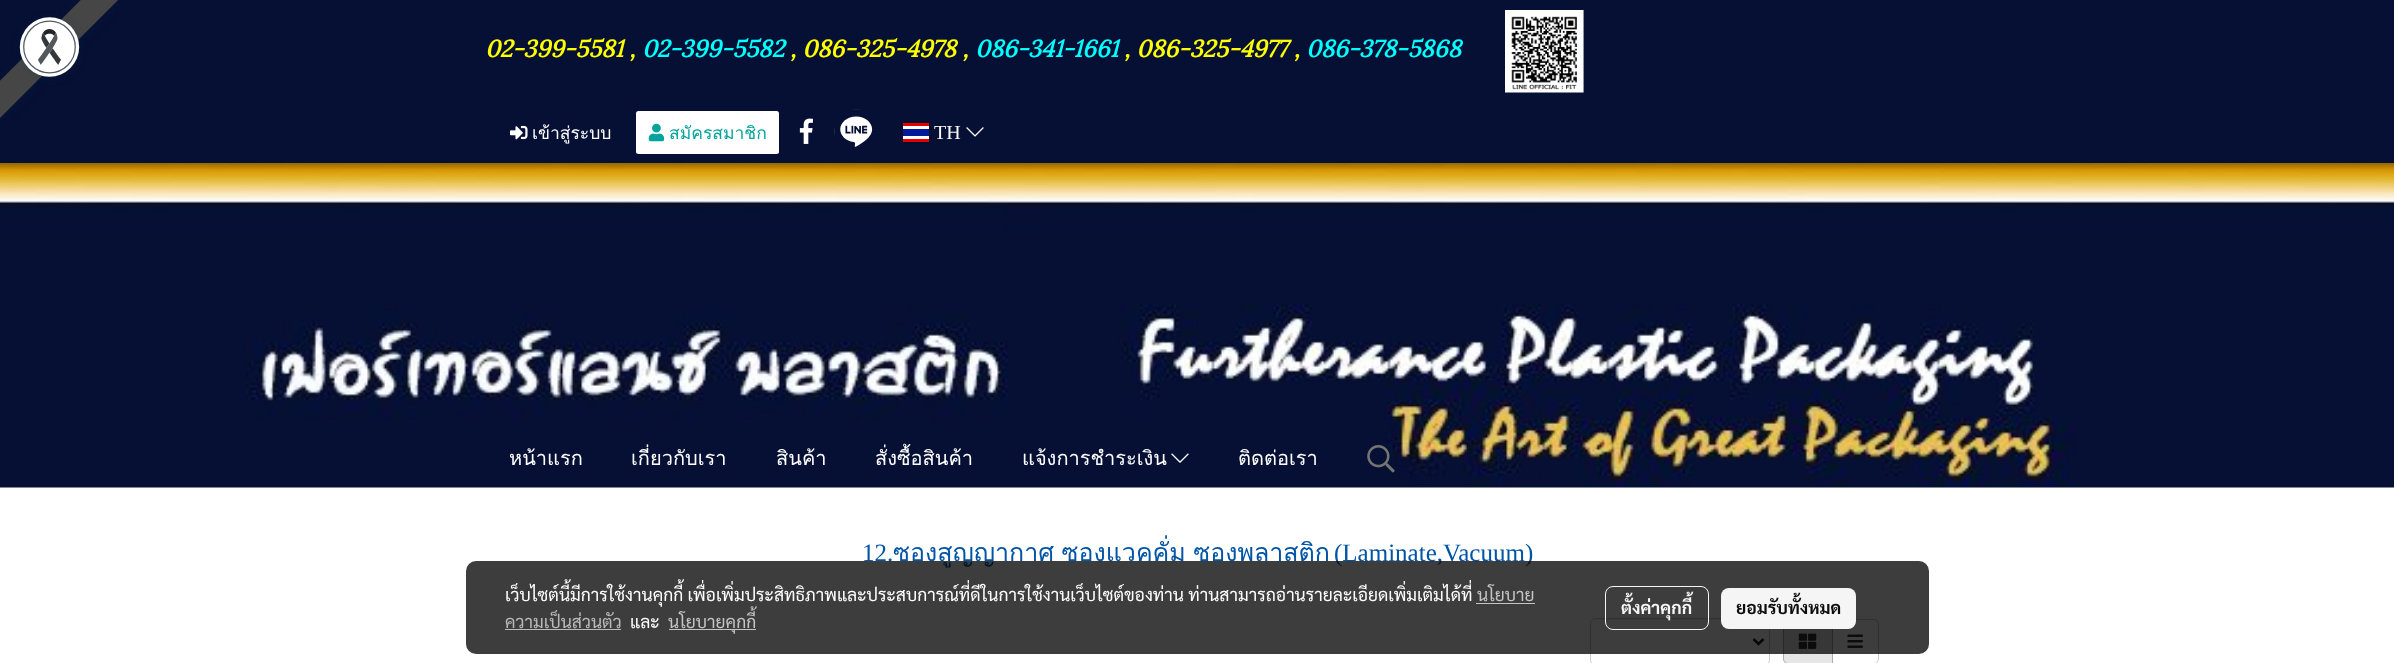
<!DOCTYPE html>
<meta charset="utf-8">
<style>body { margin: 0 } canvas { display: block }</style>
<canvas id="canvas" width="2394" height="663"></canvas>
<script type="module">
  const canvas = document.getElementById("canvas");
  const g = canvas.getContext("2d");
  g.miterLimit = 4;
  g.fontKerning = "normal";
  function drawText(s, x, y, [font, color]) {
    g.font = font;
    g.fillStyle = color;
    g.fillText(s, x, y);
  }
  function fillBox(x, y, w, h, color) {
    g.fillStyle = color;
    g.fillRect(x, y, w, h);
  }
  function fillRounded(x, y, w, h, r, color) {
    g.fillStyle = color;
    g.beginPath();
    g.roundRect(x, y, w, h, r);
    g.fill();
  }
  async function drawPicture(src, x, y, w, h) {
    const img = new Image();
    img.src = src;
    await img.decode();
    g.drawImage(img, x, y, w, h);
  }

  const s1 = ["italic bold 23.75px Lora", "#FFFF00"];
  const s2 = ["italic bold 23.75px Lora", "#00FFFF"];
  const s3 = ["17.5px Loma", "#FFFFFF"];
  const s4 = ["17.5px Loma", "#03A49E"];
  const s5 = ["20px Liberation Serif", "#FBF8F8"];
  const s6 = ["20px Loma", "#FFFFFF"];
  const s7 = ["25px Liberation Serif", "#0054A6"];
  const s8 = ["25px Loma", "#0054A6"];
  const s9 = ["17.5px Sarabun", "#FFFFFF"];
  const s10 = ["17.5px Sarabun", "#C5C5C5"];
  const s11 = ["17.5px Sarabun", "#BBBBBB"];
  const s12 = ["bold 17.5px Sarabun", "#F5F5F5"];
  const s13 = ["bold 17.5px Sarabun", "#0D0D0D"];

  fillBox(0, 0, 2394, 663, "#FFFFFF");
  fillBox(0, 0, 2394, 163, "#061034");
  await drawPicture("pic1.png", 0, 0, 118, 118);
  await drawPicture("pic2.png", 0, 163, 2394, 325);
  drawText("02-399-5581 ,", 485, 57, s1);
  drawText("02-399-5582", 642, 57, s2);
  drawText(", 086-325-4978 ,", 790, 57, s1);
  drawText("086-341-1661", 975, 57, s2);
  drawText(", 086-325-4977 ,", 1124, 57, s1);
  drawText("086-378-5868", 1306, 57, s2);
  await drawPicture("pic3.png", 1505, 10, 79, 83);
  await drawPicture("pic4.png", 510, 125, 18, 15);
  drawText("เข้าสู่ระบบ", 532, 139, s3);
  fillRounded(636, 111, 143, 43, 2.5, "#FFFFFF");
  await drawPicture("pic5.png", 648, 123, 17, 19);
  drawText("สมัครสมาชิก", 669, 139, s4);
  await drawPicture("pic6.png", 799, 118, 14, 26);
  await drawPicture("pic7.png", 834, 109, 39, 38);
  g.fillStyle = "rgba(0, 0, 0, 0.25)";
  g.filter = "blur(1px)";
  g.beginPath();
  g.rect(903, 123, 27, 20);
  g.fill();
  g.filter = "none";
  fillBox(903, 126, 26, 13, "#FFFFFF");
  fillBox(903, 129, 26, 7, "#001B9A");
  fillBox(903, 123, 26, 3, "#E70000");
  fillBox(903, 139, 26, 3, "#E70000");
  drawText("TH", 934, 139, s5);
  await drawPicture("pic8.png", 966, 127, 18, 10);
  drawText("หน้าแรก", 509, 465, s6);
  drawText("เกี่ยวกับเรา", 631, 465, s6);
  drawText("สินค้า", 776, 465, s6);
  drawText("สั่งซื้อสินค้า", 875, 465, s6);
  drawText("แจ้งการชำระเงิน", 1022, 465, s6);
  await drawPicture("pic9.png", 1171, 453, 18, 10);
  drawText("ติดต่อเรา", 1238, 465, s6);
  await drawPicture("pic10.png", 1367, 445, 28, 28);
  drawText("12.", 862, 561, s7);
  g.wordSpacing = "-1px";
  drawText("ซองสูญญากาศ ซองแวคคั่ม ซองพลาสติก", 893, 561, s8);
  g.wordSpacing = "0px";
  drawText("(Laminate,Vacuum)", 1334, 561, s7);
  g.fillStyle = "#ECECEC";
  g.beginPath();
  g.moveTo(1595, 620);
  g.lineTo(1765, 620);
  g.bezierCurveTo(1767, 620, 1769, 622, 1769, 624);
  g.lineTo(1769, 623);
  g.bezierCurveTo(1769, 621, 1767, 619, 1765, 619);
  g.lineTo(1595, 619);
  g.bezierCurveTo(1593, 619, 1591, 621, 1591, 623);
  g.lineTo(1591, 624);
  g.bezierCurveTo(1591, 622, 1593, 620, 1595, 620);
  g.closePath();
  g.fill();
  g.beginPath();
  g.roundRect(1590.5, 618.5, 179, 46, 4.5);
  g.strokeStyle = "#CDCED2";
  g.stroke();
  g.beginPath();
  g.moveTo(1753.5, 639);
  g.lineTo(1758.5, 644);
  g.lineTo(1763.5, 639);
  g.strokeStyle = "#212121";
  g.lineWidth = 2.5;
  g.stroke();
  g.beginPath();
  g.moveTo(1831.5, 619.5);
  g.lineTo(1874, 619.5);
  g.bezierCurveTo(1876.5, 619.5, 1878.5, 621.5, 1878.5, 624);
  g.lineTo(1878.5, 659);
  g.bezierCurveTo(1878.5, 661.5, 1876.5, 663.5, 1874, 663.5);
  g.lineTo(1831.5, 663.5);
  g.closePath();
  g.strokeStyle = "#CCCCCC";
  g.lineWidth = 1;
  g.stroke();
  g.fillStyle = "#E6E6E6";
  g.beginPath();
  g.moveTo(1788, 619.5);
  g.lineTo(1832.5, 619.5);
  g.lineTo(1832.5, 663.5);
  g.lineTo(1788, 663.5);
  g.bezierCurveTo(1785.5, 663.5, 1783.5, 661.5, 1783.5, 659);
  g.lineTo(1783.5, 624);
  g.bezierCurveTo(1783.5, 621.5, 1785.5, 619.5, 1788, 619.5);
  g.closePath();
  g.fill();
  g.strokeStyle = "#ADADAD";
  g.stroke();
  await drawPicture("pic11.png", 1798, 633, 19, 16);
  await drawPicture("pic12.png", 1847, 634, 16, 14);
  fillRounded(466, 561, 1463, 93, 10, "rgba(0, 0, 0, 0.76)");
  drawText("เว็บไซต์นี้มีการใช้งานคุกกี้ เพื่อเพิ่มประสิทธิภาพและประสบการณ์ที่ดีในการใช้งานเว็บไซต์ของท่าน ท่านสามารถอ่านรายละเอียดเพิ่มเติมได้ที่", 505, 601, s9);
  drawText("นโยบาย", 1477, 601, s10);
  fillBox(1476, 603, 59, 1, "#C5C5C5");
  drawText("ความเป็นส่วนตัว", 505, 628, s11);
  fillBox(505, 629, 116, 1, "rgba(194, 194, 194, 0.95)");
  drawText("และ", 630, 628, s9);
  fillBox(669, 629, 87, 1, "#C5C5C5");
  drawText("นโยบายคุกกี้", 668, 628, s10);
  g.beginPath();
  g.roundRect(1605.5, 586.5, 103, 43, 7.5);
  g.strokeStyle = "rgba(255, 255, 255, 0.95)";
  g.stroke();
  drawText("ตั้งค่าคุกกี้", 1621, 614, s12);
  fillRounded(1721, 588, 135, 41, 8, "rgba(255, 255, 255, 0.95)");
  drawText("ยอมรับทั้งหมด", 1736, 614, s13);
</script>
